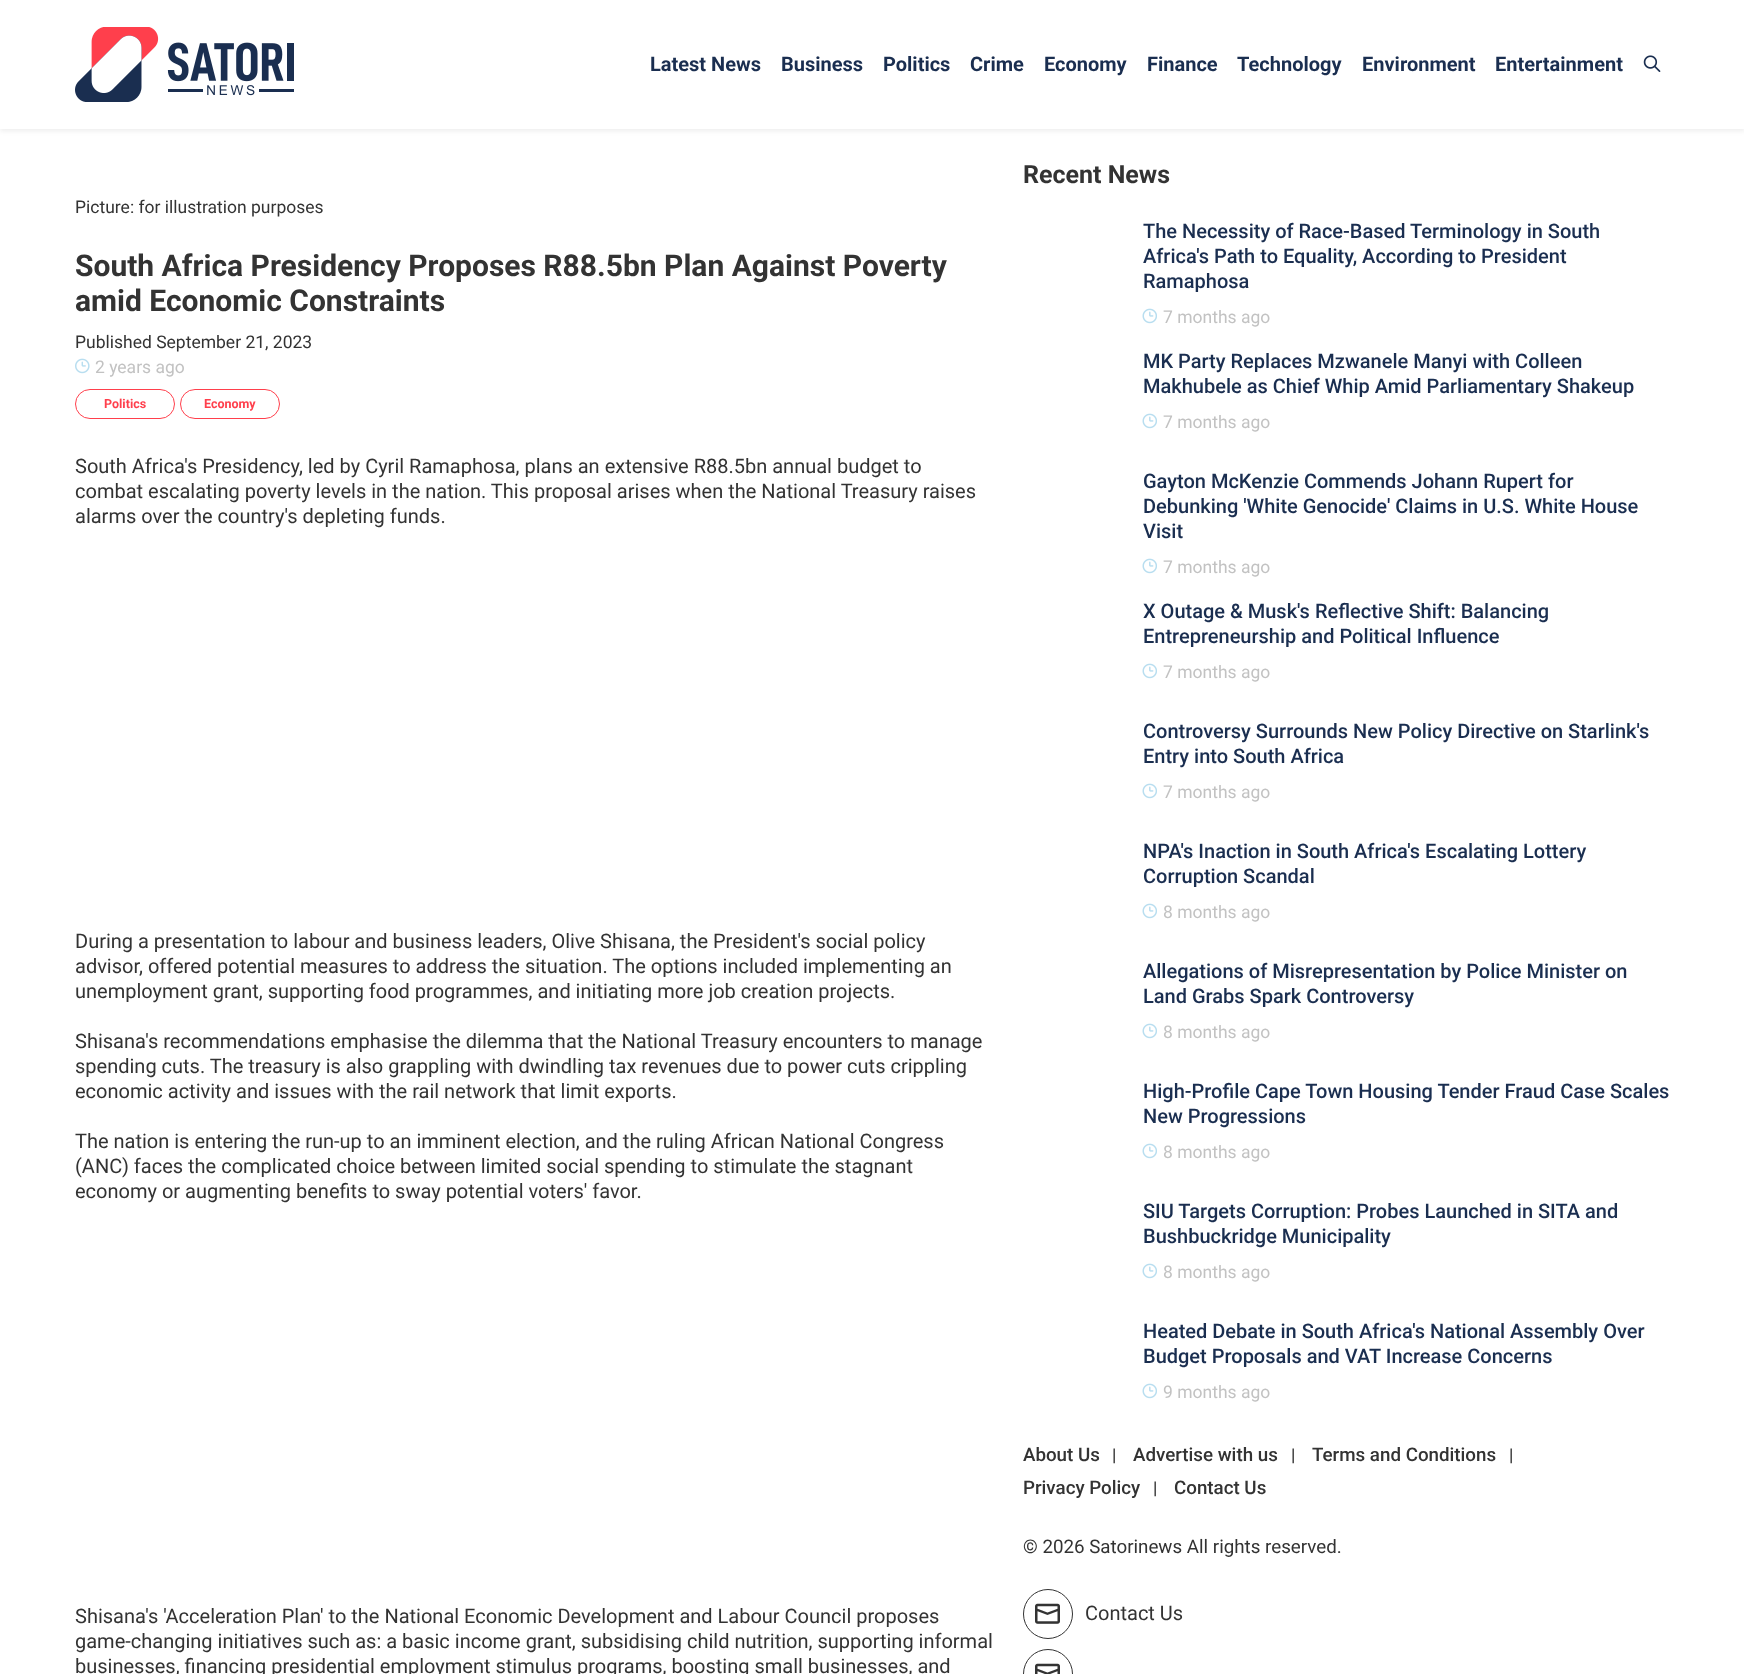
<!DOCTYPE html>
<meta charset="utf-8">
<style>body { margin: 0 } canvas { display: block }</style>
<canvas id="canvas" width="1744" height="1674"></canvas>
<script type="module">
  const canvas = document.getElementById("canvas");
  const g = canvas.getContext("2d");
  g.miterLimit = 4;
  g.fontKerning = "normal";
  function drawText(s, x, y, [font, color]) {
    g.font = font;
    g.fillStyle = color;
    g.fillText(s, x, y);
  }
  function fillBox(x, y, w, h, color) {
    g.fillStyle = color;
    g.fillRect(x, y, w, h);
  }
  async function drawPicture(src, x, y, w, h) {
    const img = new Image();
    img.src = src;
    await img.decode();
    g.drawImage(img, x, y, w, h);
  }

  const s1 = ["bold 20px Roboto", "#1A2E50"];
  const s2 = ["17.5px Roboto", "#333333"];
  const s3 = ["bold 30px Roboto", "#333333"];
  const s4 = ["17.5px Roboto", "#C2C2C2"];
  const s5 = ["bold 12.5px Roboto", "#FF3F4C"];
  const s6 = ["20px Roboto", "#333333"];
  const s7 = ["bold 25px Roboto", "#333333"];
  const s8 = ["500 20px Roboto", "#1A2E50"];
  const s9 = ["500 18.75px Roboto", "#333333"];
  const s10 = ["500 17.5px Roboto", "#333333"];
  const s11 = ["18.75px Roboto", "#333333"];

  fillBox(0, 0, 1744, 1674, "#FFFFFF");
  g.fillStyle = "rgba(0, 0, 0, 0.07)";
  g.filter = "blur(2.5px)";
  g.beginPath();
  g.rect(0, 3, 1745, 128);
  g.fill();
  g.filter = "none";
  fillBox(0, 0, 1744, 129, "#FFFFFF");
  await drawPicture("pic1.png", 75, 27, 219, 75);
  drawText("Latest News", 650, 71, s1);
  drawText("Business", 781, 71, s1);
  drawText("Politics", 883, 71, s1);
  drawText("Crime", 970, 71, s1);
  drawText("Economy", 1044, 71, s1);
  drawText("Finance", 1147, 71, s1);
  drawText("Technology", 1237, 71, s1);
  drawText("Environment", 1362, 71, s1);
  drawText("Entertainment", 1495, 71, s1);
  await drawPicture("pic2.png", 1643, 55, 18, 17);
  drawText("Picture: for illustration purposes", 75, 213, s2);
  drawText("South Africa Presidency Proposes R88.5bn Plan Against Poverty", 75, 276, s3);
  drawText("amid Economic Constraints", 75, 311, s3);
  drawText("Published September 21, 2023", 75, 348, s2);
  await drawPicture("pic3.png", 75, 358, 15, 16);
  drawText("2 years ago", 95, 373, s4);
  g.beginPath();
  g.roundRect(75.5, 389.5, 99, 29, 14.5);
  g.strokeStyle = "#FF3F4C";
  g.stroke();
  drawText("Politics", 104, 408, s5);
  g.beginPath();
  g.roundRect(180.5, 389.5, 99, 29, 14.5);
  g.stroke();
  drawText("Economy", 204, 408, s5);
  drawText("South Africa's Presidency, led by Cyril Ramaphosa, plans an extensive R88.5bn annual budget to", 75, 473, s6);
  drawText("combat escalating poverty levels in the nation. This proposal arises when the National Treasury raises", 75, 498, s6);
  drawText("alarms over the country's depleting funds.", 75, 523, s6);
  drawText("During a presentation to labour and business leaders, Olive Shisana, the President's social policy", 75, 948, s6);
  drawText("advisor, offered potential measures to address the situation. The options included implementing an", 75, 973, s6);
  drawText("unemployment grant, supporting food programmes, and initiating more job creation projects.", 75, 998, s6);
  drawText("Shisana's recommendations emphasise the dilemma that the National Treasury encounters to manage", 75, 1048, s6);
  drawText("spending cuts. The treasury is also grappling with dwindling tax revenues due to power cuts crippling", 75, 1073, s6);
  drawText("economic activity and issues with the rail network that limit exports.", 75, 1098, s6);
  drawText("The nation is entering the run-up to an imminent election, and the ruling African National Congress", 75, 1148, s6);
  drawText("(ANC) faces the complicated choice between limited social spending to stimulate the stagnant", 75, 1173, s6);
  drawText("economy or augmenting benefits to sway potential voters' favor.", 75, 1198, s6);
  drawText("Shisana's 'Acceleration Plan' to the National Economic Development and Labour Council proposes", 75, 1623, s6);
  drawText("game-changing initiatives such as: a basic income grant, subsidising child nutrition, supporting informal", 75, 1648, s6);
  drawText("businesses, financing presidential employment stimulus programs, boosting small businesses, and", 75, 1673, s6);
  drawText("Recent News", 1023, 183, s7);
  drawText("The Necessity of Race-Based Terminology in South", 1143, 238, s8);
  drawText("Africa's Path to Equality, According to President", 1143, 263, s8);
  drawText("Ramaphosa", 1143, 288, s8);
  await drawPicture("pic4.png", 1142, 308, 15, 16);
  drawText("7 months ago", 1163, 323, s4);
  drawText("MK Party Replaces Mzwanele Manyi with Colleen", 1143, 368, s8);
  drawText("Makhubele as Chief Whip Amid Parliamentary Shakeup", 1143, 393, s8);
  await drawPicture("pic4.png", 1142, 413, 15, 16);
  drawText("7 months ago", 1163, 428, s4);
  drawText("Gayton McKenzie Commends Johann Rupert for", 1143, 488, s8);
  drawText("Debunking 'White Genocide' Claims in U.S. White House", 1143, 513, s8);
  drawText("Visit", 1143, 538, s8);
  await drawPicture("pic4.png", 1142, 558, 15, 16);
  drawText("7 months ago", 1163, 573, s4);
  drawText("X Outage & Musk's Reflective Shift: Balancing", 1143, 618, s8);
  drawText("Entrepreneurship and Political Influence", 1143, 643, s8);
  await drawPicture("pic4.png", 1142, 663, 15, 16);
  drawText("7 months ago", 1163, 678, s4);
  drawText("Controversy Surrounds New Policy Directive on Starlink's", 1143, 738, s8);
  drawText("Entry into South Africa", 1143, 763, s8);
  await drawPicture("pic4.png", 1142, 783, 15, 16);
  drawText("7 months ago", 1163, 798, s4);
  drawText("NPA's Inaction in South Africa's Escalating Lottery", 1143, 858, s8);
  drawText("Corruption Scandal", 1143, 883, s8);
  await drawPicture("pic4.png", 1142, 903, 15, 16);
  drawText("8 months ago", 1163, 918, s4);
  drawText("Allegations of Misrepresentation by Police Minister on", 1143, 978, s8);
  drawText("Land Grabs Spark Controversy", 1143, 1003, s8);
  await drawPicture("pic4.png", 1142, 1023, 15, 16);
  drawText("8 months ago", 1163, 1038, s4);
  drawText("High-Profile Cape Town Housing Tender Fraud Case Scales", 1143, 1098, s8);
  drawText("New Progressions", 1143, 1123, s8);
  await drawPicture("pic4.png", 1142, 1143, 15, 16);
  drawText("8 months ago", 1163, 1158, s4);
  drawText("SIU Targets Corruption: Probes Launched in SITA and", 1143, 1218, s8);
  drawText("Bushbuckridge Municipality", 1143, 1243, s8);
  await drawPicture("pic4.png", 1142, 1263, 15, 16);
  drawText("8 months ago", 1163, 1278, s4);
  drawText("Heated Debate in South Africa's National Assembly Over", 1143, 1338, s8);
  drawText("Budget Proposals and VAT Increase Concerns", 1143, 1363, s8);
  await drawPicture("pic4.png", 1142, 1383, 15, 16);
  drawText("9 months ago", 1163, 1398, s4);
  drawText("About Us", 1023, 1461, s9);
  drawText("|", 1112, 1461, s10);
  drawText("Advertise with us", 1133, 1461, s9);
  drawText("|", 1291, 1461, s10);
  drawText("Terms and Conditions", 1312, 1461, s9);
  drawText("|", 1509, 1461, s10);
  drawText("Privacy Policy", 1023, 1494, s9);
  drawText("|", 1153, 1494, s10);
  drawText("Contact Us", 1174, 1494, s9);
  drawText("© 2026 Satorinews All rights reserved.", 1023, 1553, s11);
  g.beginPath();
  g.arc(1048, 1614, 24.5, 0, Math.PI * 2);
  g.strokeStyle = "#333333";
  g.stroke();
  await drawPicture("pic5.png", 1035, 1603, 25, 21);
  drawText("Contact Us", 1085, 1620, s6);
  g.beginPath();
  g.arc(1048, 1674, 24.5, 0, Math.PI * 2);
  g.stroke();
  await drawPicture("pic6.png", 1035, 1663, 25, 11);
</script>
